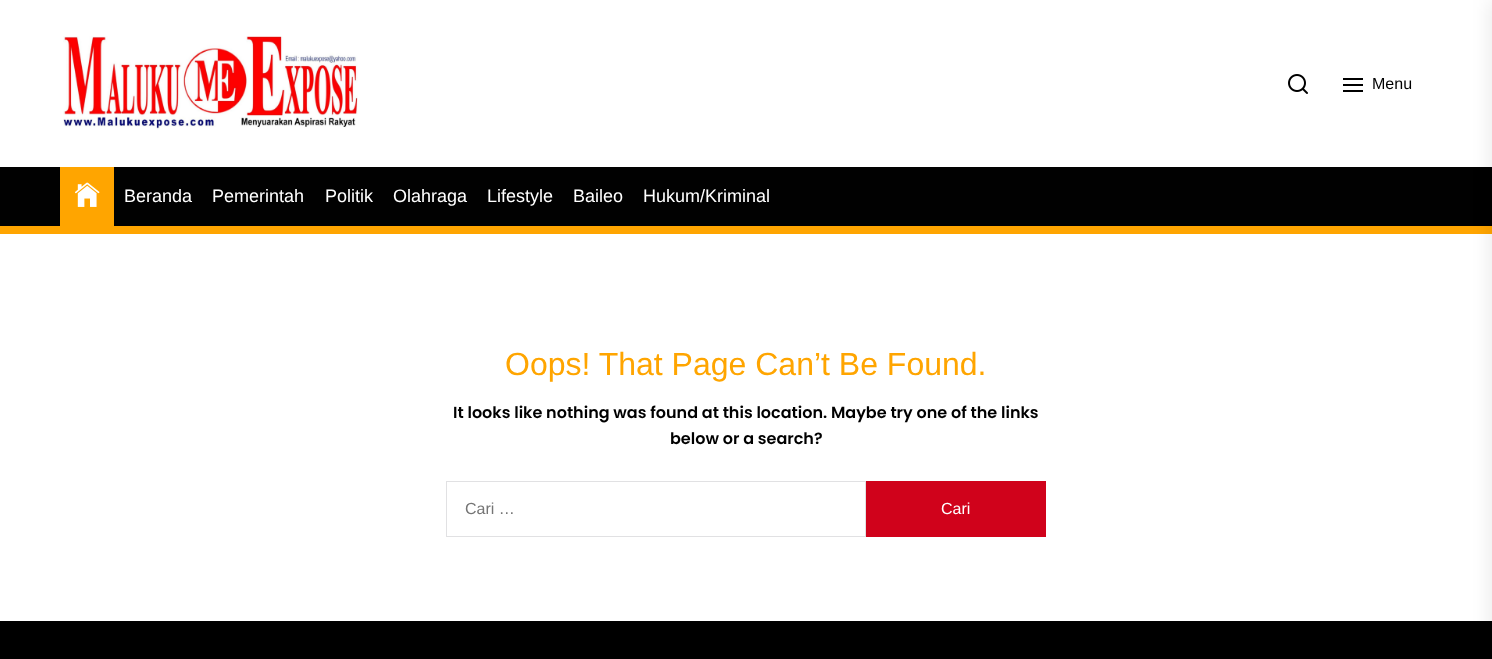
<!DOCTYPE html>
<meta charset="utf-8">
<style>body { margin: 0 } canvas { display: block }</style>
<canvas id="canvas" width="1492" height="659"></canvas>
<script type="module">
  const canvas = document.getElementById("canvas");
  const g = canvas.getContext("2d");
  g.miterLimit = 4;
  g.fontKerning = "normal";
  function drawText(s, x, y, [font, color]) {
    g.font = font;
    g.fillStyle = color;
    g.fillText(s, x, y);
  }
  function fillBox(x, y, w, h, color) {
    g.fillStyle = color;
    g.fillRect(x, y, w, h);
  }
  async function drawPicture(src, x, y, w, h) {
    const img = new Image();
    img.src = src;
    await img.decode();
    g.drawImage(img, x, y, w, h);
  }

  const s1 = ["16px Liberation Sans", "#000000"];
  const s2 = ["18px Liberation Sans", "#FFFFFF"];
  const s3 = ["32px Liberation Sans", "#FFA500"];
  const s4 = ["600 16px Poppins", "#000000"];
  const s5 = ["16px Liberation Sans", "#757575"];
  const s6 = ["16px Liberation Sans", "#FFFFFF"];

  fillBox(0, 0, 1492, 659, "#FFFFFF");
  await drawPicture("pic1.png", 63, 36, 295, 94);
  await drawPicture("pic2.png", 1288, 74, 20, 20);
  fillBox(1343, 78, 20, 2, "#000000");
  fillBox(1343, 84, 20, 2, "#000000");
  fillBox(1343, 90, 20, 2, "#000000");
  drawText("Menu", 1372, 89, s1);
  fillBox(0, 167, 1492, 59, "#010101");
  fillBox(60, 167, 54, 59, "#FFA500");
  await drawPicture("pic3.png", 75, 182, 25, 25);
  drawText("Beranda", 124, 202, s2);
  drawText("Pemerintah", 212, 202, s2);
  drawText("Politik", 325, 202, s2);
  drawText("Olahraga", 393, 202, s2);
  drawText("Lifestyle", 487, 202, s2);
  drawText("Baileo", 573, 202, s2);
  drawText("Hukum/Kriminal", 643, 202, s2);
  fillBox(0, 226, 1492, 8, "#FFA500");
  drawText("Oops! That Page Can’t Be Found.", 505, 375, s3);
  drawText("It looks like nothing was found at this location. Maybe try one of the links", 453, 418, s4);
  drawText("below or a search?", 670, 444, s4);
  g.strokeStyle = "#E1E1E3";
  g.strokeRect(446.5, 481.5, 419, 55);
  drawText("Cari …", 465, 514, s5);
  fillBox(866, 481, 180, 56, "#D0021B");
  drawText("Cari", 941, 514, s6);
  fillBox(0, 621, 1492, 38, "#000000");
  g.fillStyle = "rgba(0, 0, 0, 0.1)";
  g.filter = "blur(10px)";
  g.beginPath();
  g.rect(1492, 0, 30, 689);
  g.fill();
  g.filter = "none";
</script>
